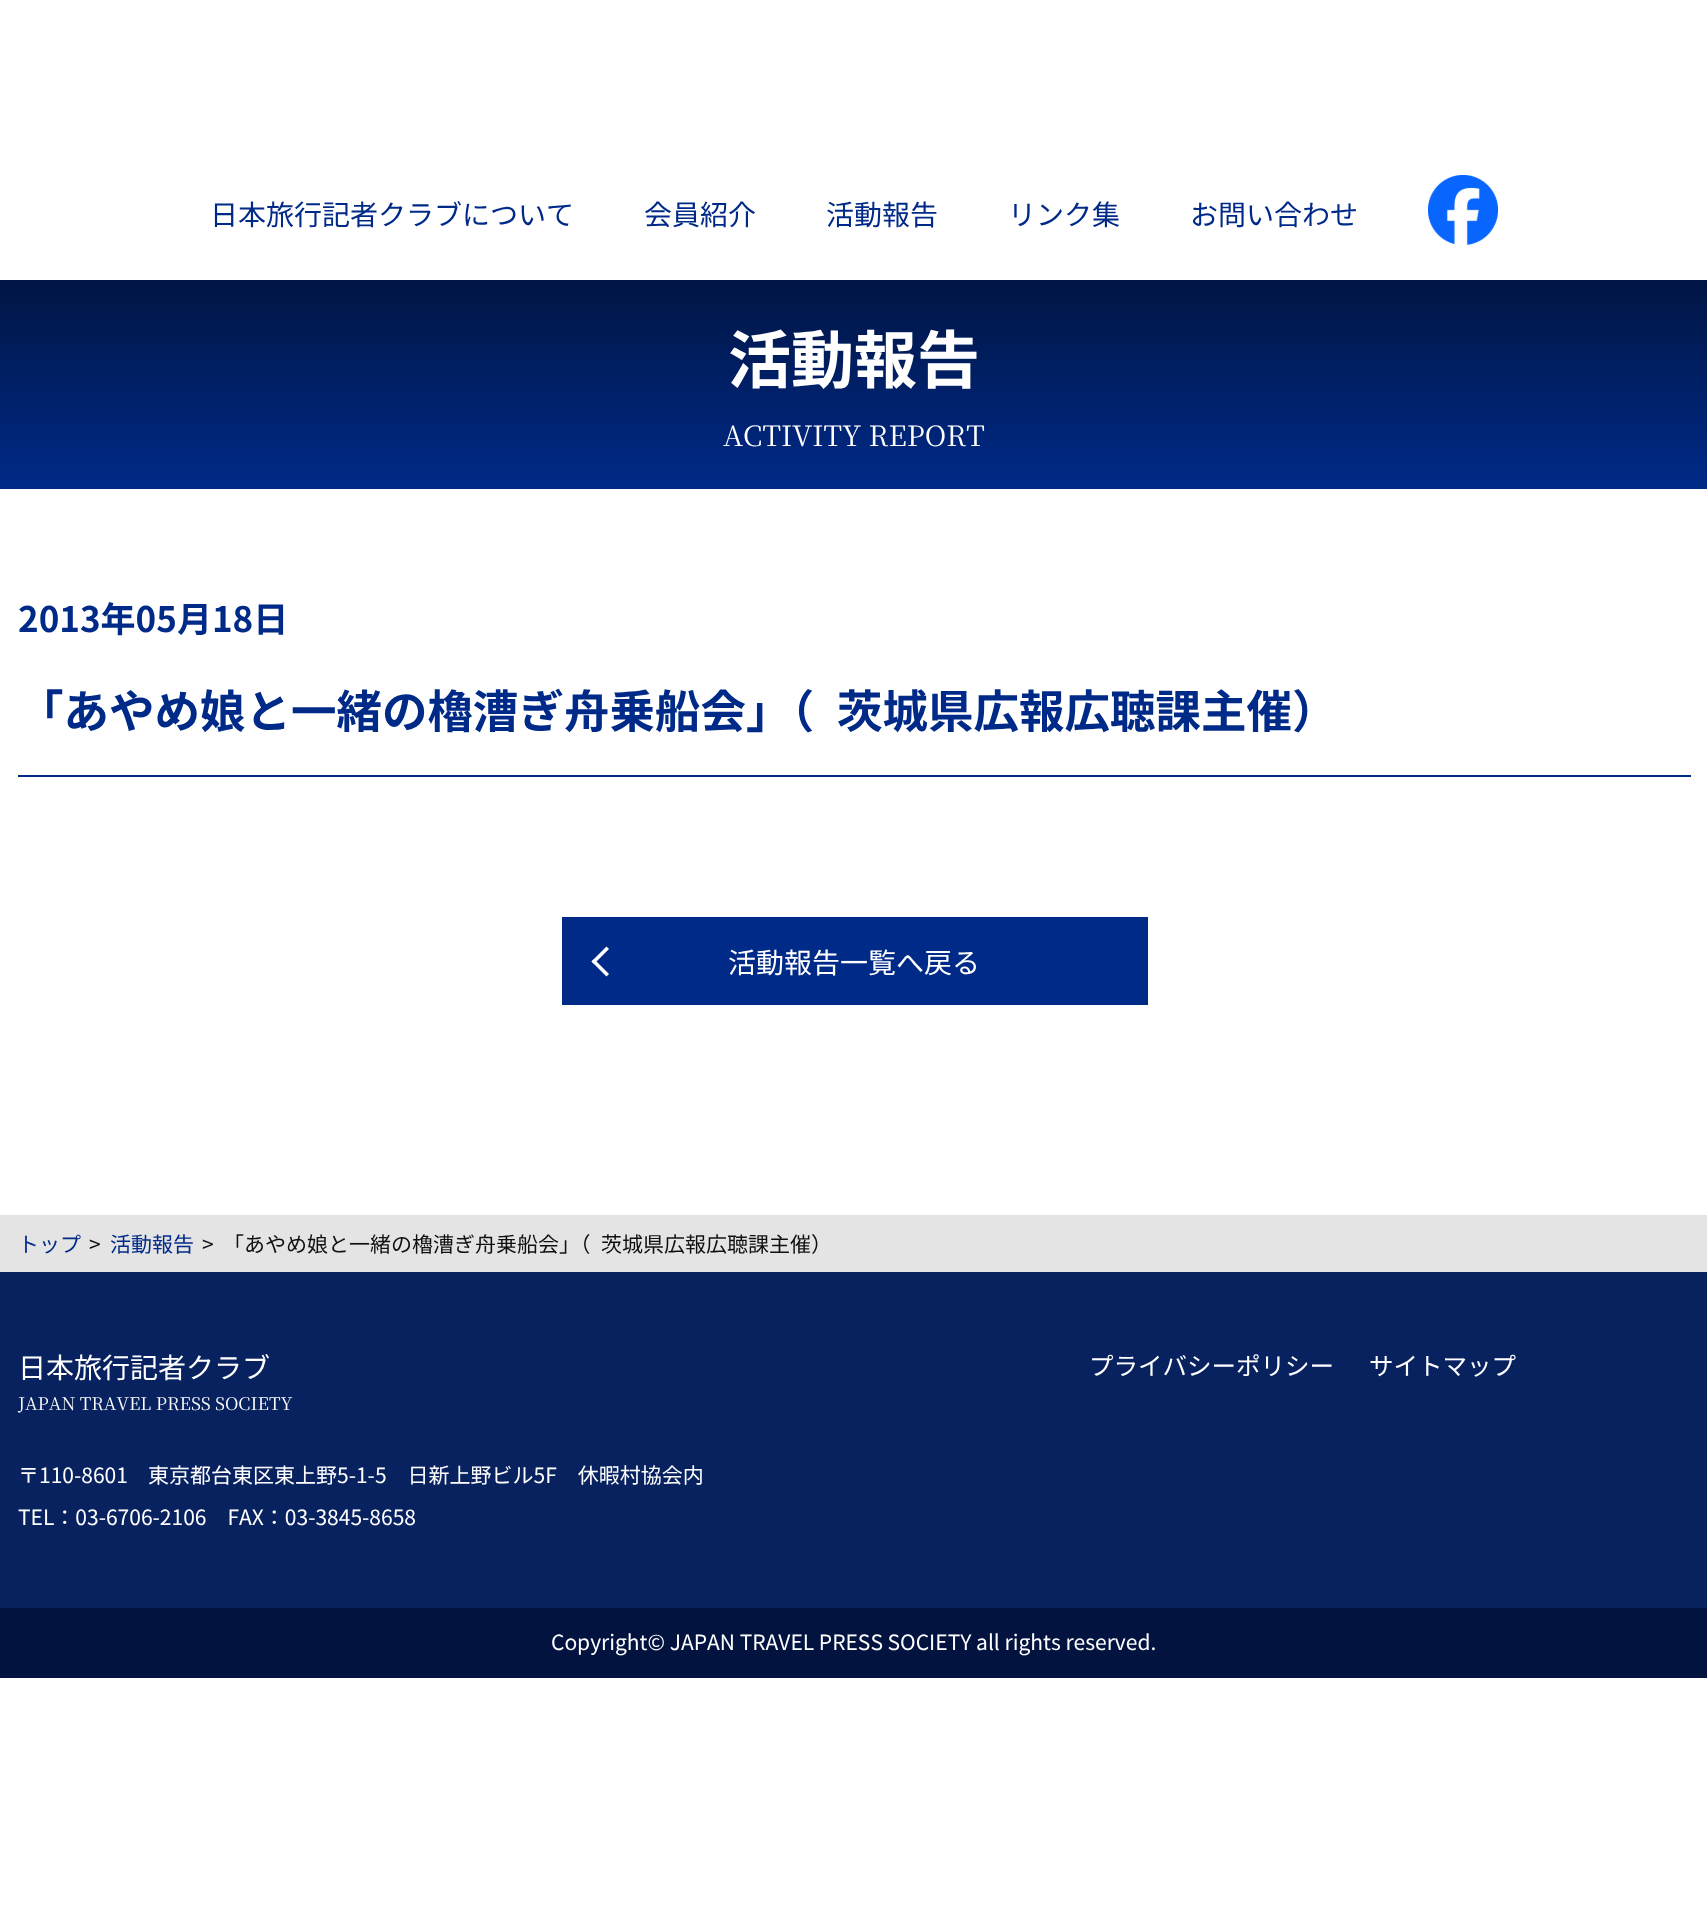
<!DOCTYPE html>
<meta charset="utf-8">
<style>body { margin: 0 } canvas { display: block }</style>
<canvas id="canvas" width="1707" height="1929"></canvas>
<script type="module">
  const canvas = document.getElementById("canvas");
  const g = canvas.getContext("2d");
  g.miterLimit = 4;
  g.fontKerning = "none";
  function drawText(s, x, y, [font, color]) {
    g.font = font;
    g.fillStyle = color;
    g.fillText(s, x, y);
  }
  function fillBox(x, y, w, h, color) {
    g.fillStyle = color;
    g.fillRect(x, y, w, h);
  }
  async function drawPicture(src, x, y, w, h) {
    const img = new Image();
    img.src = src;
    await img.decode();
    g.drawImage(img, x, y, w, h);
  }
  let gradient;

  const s1 = ["28px Noto Sans JP", "#002A88"];
  const s2 = ["bold 63px Noto Sans JP", "#FFFFFF"];
  const s3 = ["28px Noto Serif JP", "#FFFFFF"];
  const s4 = ["bold 35px Noto Sans JP", "#002A88"];
  const s5 = ["bold 45.5px Noto Sans JP", "#002A88"];
  const s6 = ["28px Noto Sans JP", "#FFFFFF"];
  const s7 = ["21px Noto Sans JP", "#002A88"];
  const s8 = ["21px Noto Sans JP", "#101010"];
  const s9 = ["17.5px Noto Serif JP", "#FFFFFF"];
  const s10 = ["21px Noto Sans JP", "#FFFFFF"];
  const s11 = ["24.5px Noto Sans JP", "#FFFFFF"];

  fillBox(0, 0, 1707, 1929, "#FFFFFF");
  drawText("日本旅行記者クラブについて", 210, 225, s1);
  drawText("会員紹介", 644, 225, s1);
  drawText("活動報告", 826, 225, s1);
  drawText("リンク集", 1008, 225, s1);
  drawText("お問い合わせ", 1190, 225, s1);
  await drawPicture("pic1.png", 1428, 175, 70, 70);
  gradient = g.createLinearGradient(854, 280, 854, 487);
  gradient.addColorStop(0, "#001544");
  gradient.addColorStop(1, "#002A88");
  g.fillStyle = gradient;
  g.fillRect(0, 280, 1707, 207);
  fillBox(0, 487, 1707, 2, "#002A88");
  drawText("活動報告", 728, 383, s2);
  drawText("ACTIVITY REPORT", 723, 446, s3);
  fillBox(18, 775, 1673, 2, "#002A88");
  drawText("2013年05月18日", 18, 632, s4);
  drawText("「あやめ娘と一緒の櫓漕ぎ舟乗船会」（", 18, 728, s5);
  drawText("茨城県広報広聴課主催）", 837, 728, s5);
  fillBox(562, 917, 586, 88, "#002A88");
  g.fillStyle = "#FFFFFF";
  g.beginPath();
  g.moveTo(594, 959);
  g.lineTo(609, 974);
  g.lineTo(606.5, 976.5);
  g.lineTo(591.5, 961.5);
  g.closePath();
  g.fill();
  g.beginPath();
  g.moveTo(606.5, 946.5);
  g.lineTo(609, 949);
  g.lineTo(594, 964);
  g.lineTo(591.5, 961.5);
  g.closePath();
  g.fill();
  drawText("活動報告一覧へ戻る", 728, 973, s6);
  fillBox(0, 1215, 1707, 57, "#E4E4E4");
  drawText("トップ", 18, 1252, s7);
  drawText(">", 89, 1252, s8);
  drawText("活動報告", 110, 1252, s7);
  drawText(">", 202, 1252, s8);
  drawText("「あやめ娘と一緒の櫓漕ぎ舟乗船会」（", 223, 1252, s8);
  drawText("茨城県広報広聴課主催）", 601, 1252, s8);
  fillBox(0, 1272, 1707, 336, "#082260");
  drawText("日本旅行記者クラブ", 18, 1378, s6);
  drawText("JAPAN TRAVEL PRESS", 18, 1410, s9);
  drawText("SOCIETY", 215, 1410, s9);
  drawText("〒110-8601", 18, 1483, s10);
  drawText("東京都台東区東上野5-1-5　日新上野ビル5F　休暇村協会内", 148, 1483, s10);
  drawText("TEL：03-6706-2106　FAX：03-3845-8658", 18, 1525, s10);
  drawText("プライバシーポリシー", 1089, 1375, s11);
  drawText("サイトマップ", 1369, 1375, s11);
  fillBox(0, 1608, 1707, 70, "#031340");
  drawText("Copyright© JAPAN TRAVEL PRESS SOCIETY all rights reserved.", 551, 1650, s10);
</script>
